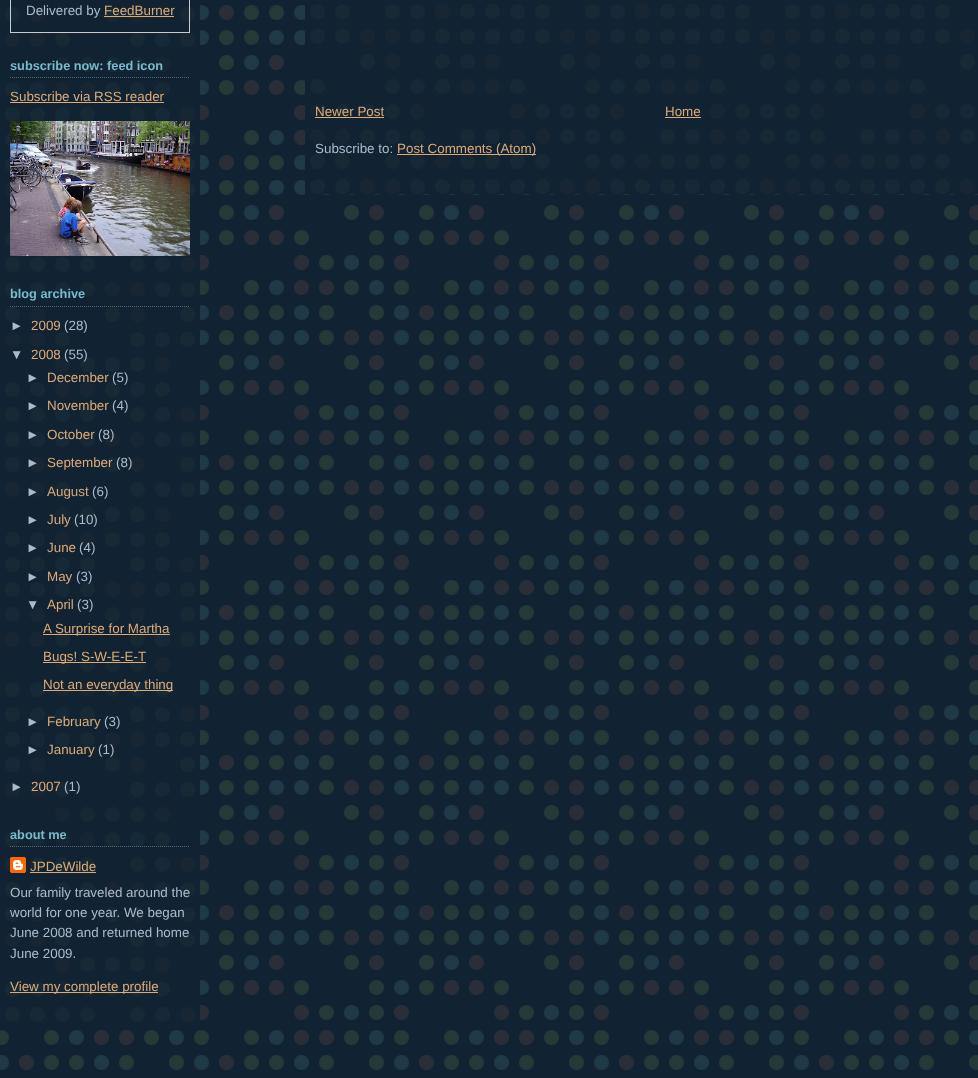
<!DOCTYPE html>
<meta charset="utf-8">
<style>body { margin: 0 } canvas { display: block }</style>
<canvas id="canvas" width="978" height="1078"></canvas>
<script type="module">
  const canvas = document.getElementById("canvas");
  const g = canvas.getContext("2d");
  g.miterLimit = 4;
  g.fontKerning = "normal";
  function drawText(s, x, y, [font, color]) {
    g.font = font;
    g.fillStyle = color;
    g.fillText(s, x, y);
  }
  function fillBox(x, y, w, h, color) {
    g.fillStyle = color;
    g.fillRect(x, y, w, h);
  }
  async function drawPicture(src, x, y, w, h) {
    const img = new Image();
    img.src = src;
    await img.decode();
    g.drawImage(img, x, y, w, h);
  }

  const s1 = ["13.4px Liberation Sans", "#AABBCC"];
  const s2 = ["13.4px Liberation Sans", "#DDAA77"];
  const s3 = ["bold 12.75px Liberation Sans", "#77BBCC"];

  fillBox(0, 0, 978, 1078, "#112233");
  await drawPicture("pic1.png", 0, 5, 978, 1065);
  await drawPicture("pic2.png", 0, 5, 200, 1017);
  g.strokeStyle = "#CCCCCC";
  g.strokeRect(10.5, -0.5, 179, 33);
  drawText("Delivered by", 26, 15, s1);
  drawText("FeedBurner", 104, 15, s2);
  fillBox(104, 16, 70, 1, "#DDAA77");
  g.beginPath();
  g.moveTo(10, 77.5);
  g.lineTo(190, 77.5);
  g.strokeStyle = "#556677";
  g.setLineDash([1, 1]);
  g.stroke();
  drawText("subscribe now: feed icon", 10, 70, s3);
  drawText("Subscribe via RSS reader", 10, 101, s2);
  fillBox(10, 102, 154, 1, "#DDAA77");
  await drawPicture("pic3.png", 10, 121, 180, 135);
  g.beginPath();
  g.moveTo(10, 306.5);
  g.lineTo(190, 306.5);
  g.stroke();
  drawText("blog archive", 10, 298, s3);
  drawText("►", 10, 330, s1);
  drawText("2009", 31, 330, s2);
  drawText("(28)", 64, 330, s1);
  drawText("▼", 10, 359, s1);
  drawText("2008", 31, 359, s2);
  drawText("(55)", 64, 359, s1);
  drawText("►", 26, 382, s1);
  drawText("December", 47, 382, s2);
  drawText("(5)", 112, 382, s1);
  drawText("►", 26, 410, s1);
  drawText("November", 47, 410, s2);
  drawText("(4)", 112, 410, s1);
  drawText("►", 26, 439, s1);
  drawText("October", 47, 439, s2);
  drawText("(8)", 98, 439, s1);
  drawText("►", 26, 467, s1);
  drawText("September", 47, 467, s2);
  drawText("(8)", 116, 467, s1);
  drawText("►", 26, 496, s1);
  drawText("August", 47, 496, s2);
  drawText("(6)", 92, 496, s1);
  drawText("►", 26, 524, s1);
  drawText("July", 47, 524, s2);
  drawText("(10)", 74, 524, s1);
  drawText("►", 26, 552, s1);
  drawText("June", 47, 552, s2);
  drawText("(4)", 79, 552, s1);
  drawText("►", 26, 581, s1);
  drawText("May", 47, 581, s2);
  drawText("(3)", 76, 581, s1);
  drawText("▼", 26, 609, s1);
  drawText("April", 47, 609, s2);
  drawText("(3)", 77, 609, s1);
  fillBox(43, 634, 127, 1, "#DDAA77");
  drawText("A Surprise for Martha", 43, 633, s2);
  fillBox(43, 662, 103, 1, "#DDAA77");
  drawText("Bugs! S-W-E-E-T", 43, 661, s2);
  fillBox(43, 690, 130, 1, "#DDAA77");
  drawText("Not an everyday thing", 43, 689, s2);
  drawText("►", 26, 726, s1);
  drawText("February", 47, 726, s2);
  drawText("(3)", 104, 726, s1);
  drawText("►", 26, 754, s1);
  drawText("January", 47, 754, s2);
  drawText("(1)", 98, 754, s1);
  drawText("►", 10, 791, s1);
  drawText("2007", 31, 791, s2);
  drawText("(1)", 64, 791, s1);
  g.beginPath();
  g.moveTo(10, 846.5);
  g.lineTo(190, 846.5);
  g.stroke();
  drawText("about me", 10, 839, s3);
  await drawPicture("pic4.png", 10, 857, 16, 16);
  drawText("JPDeWilde", 30, 871, s2);
  fillBox(30, 872, 66, 1, "#DDAA77");
  drawText("Our family traveled around the", 10, 897, s1);
  drawText("world for one year. We began", 10, 917, s1);
  drawText("June 2008 and returned home", 10, 937, s1);
  drawText("June 2009.", 10, 958, s1);
  fillBox(10, 992, 148, 1, "#DDAA77");
  drawText("View my complete profile", 10, 991, s2);
  await drawPicture("pic5.png", 305, 4, 673, 190);
  drawText("Newer Post", 315, 116, s2);
  fillBox(315, 117, 69, 1, "#DDAA77");
  drawText("Home", 665, 116, s2);
  fillBox(665, 117, 36, 1, "#DDAA77");
  drawText("Subscribe to:", 315, 153, s1);
  fillBox(397, 154, 139, 1, "#DDAA77");
  drawText("Post Comments (Atom)", 397, 153, s2);
</script>
